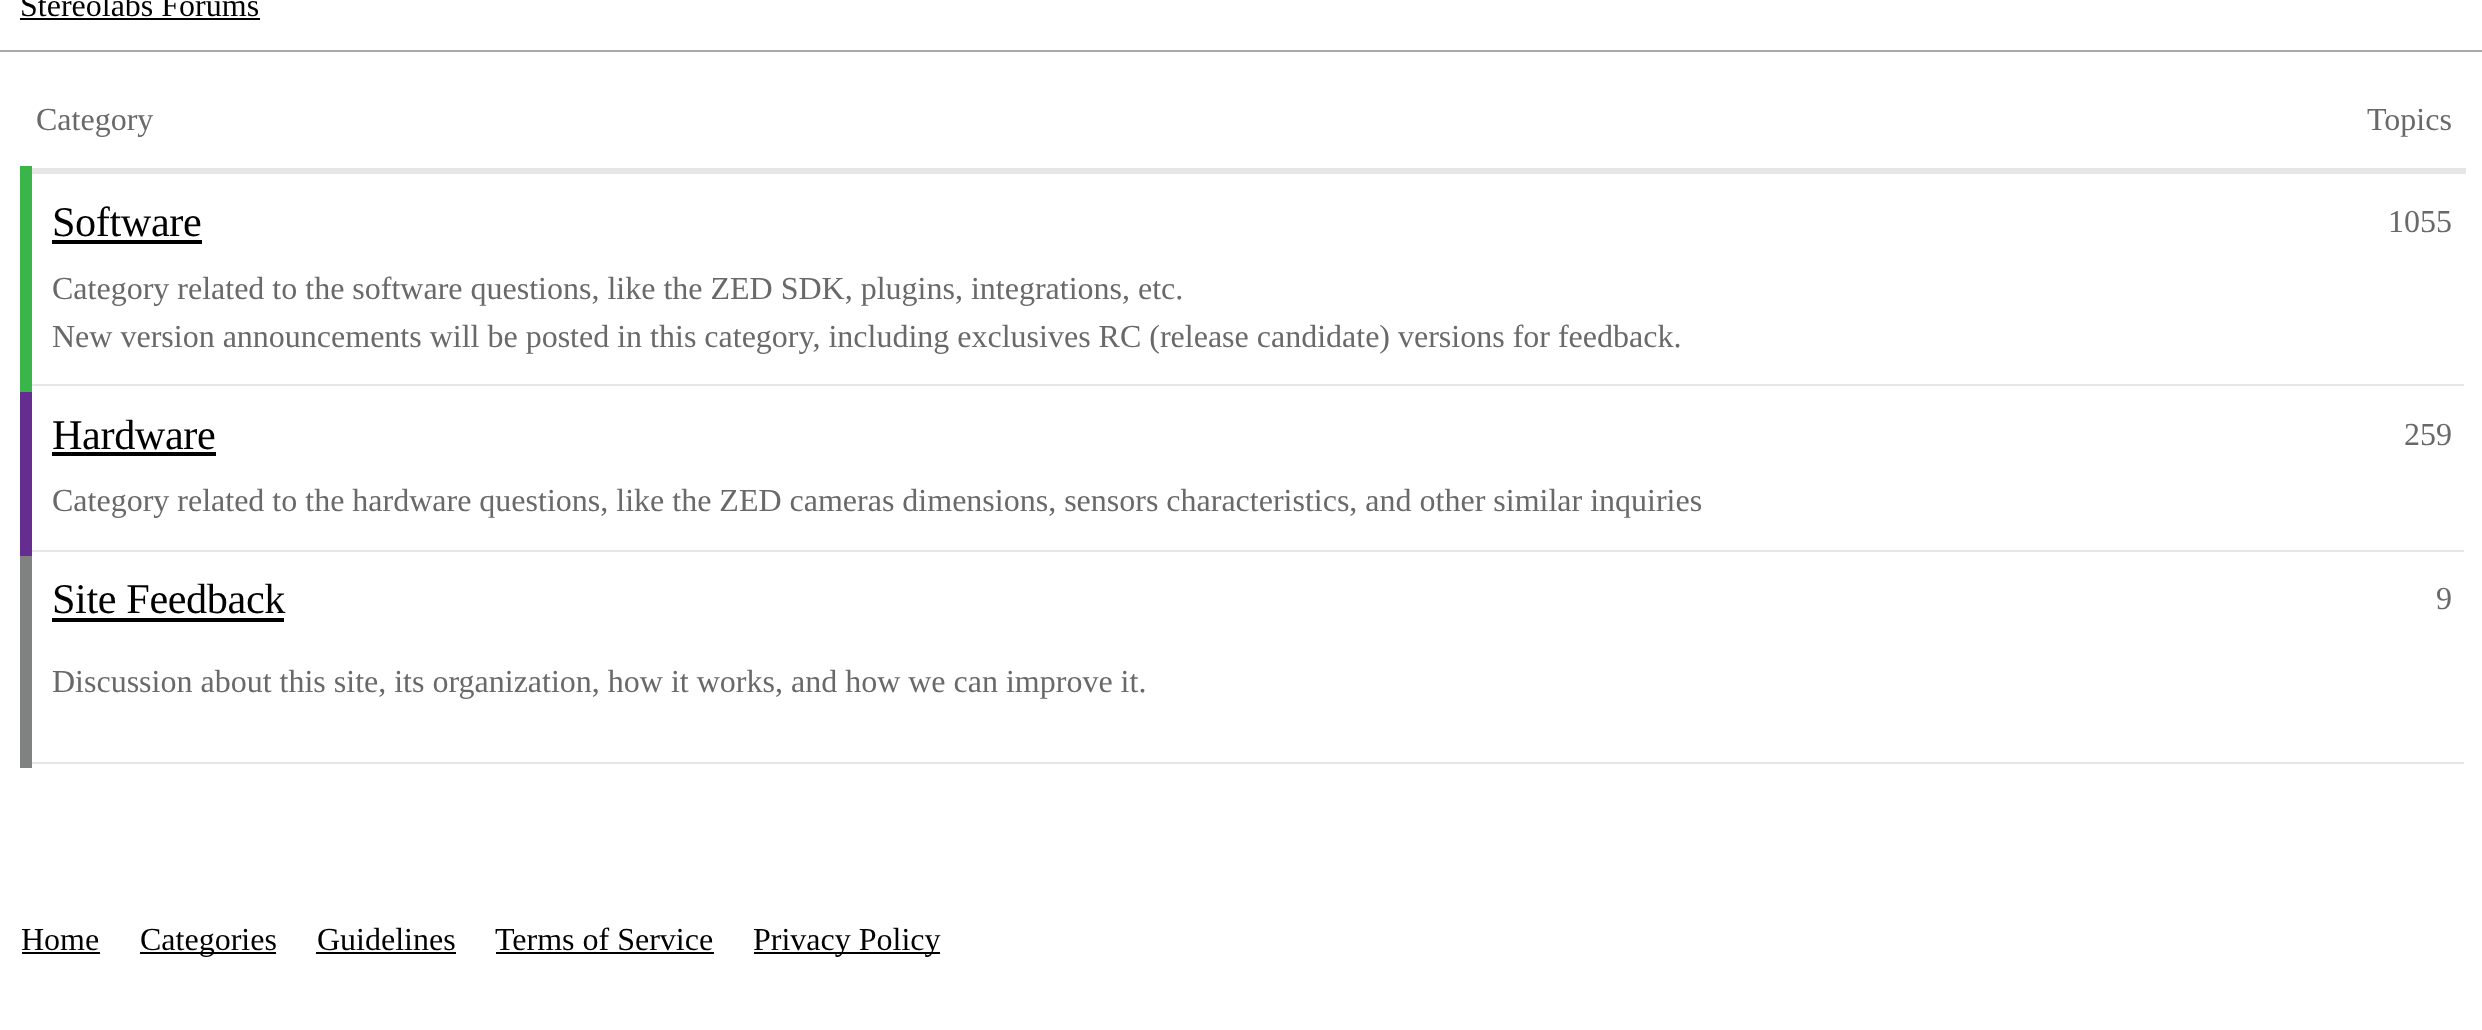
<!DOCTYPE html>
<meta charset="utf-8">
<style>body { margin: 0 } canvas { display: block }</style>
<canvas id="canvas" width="2482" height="1030"></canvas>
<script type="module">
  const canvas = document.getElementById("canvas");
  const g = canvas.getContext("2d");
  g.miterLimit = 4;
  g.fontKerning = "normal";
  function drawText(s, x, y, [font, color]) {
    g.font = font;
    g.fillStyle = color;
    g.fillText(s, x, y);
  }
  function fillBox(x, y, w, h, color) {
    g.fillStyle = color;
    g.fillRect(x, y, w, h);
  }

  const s1 = ["32px Liberation Serif", "#000000"];
  const s2 = ["32px Liberation Serif", "#696969"];
  const s3 = ["42.25px Liberation Serif", "#000000"];

  fillBox(0, 0, 2482, 1030, "#FFFFFF");
  fillBox(0, 50, 2482, 2, "#ABABAB");
  drawText("Stereolabs Forums", 20, 16, s1);
  fillBox(20, 18, 240, 2, "#000000");
  drawText("Category", 36, 130, s2);
  drawText("Topics", 2367, 130, s2);
  fillBox(24, 168, 2442, 6, "#E6E6E6");
  fillBox(26, 384, 2438, 2, "#E6E6E6");
  fillBox(20, 166, 12, 226, "#3AB54A");
  g.letterSpacing = "-0.4px";
  drawText("Software", 52, 236, s3);
  fillBox(52, 240, 150, 4, "#000000");
  g.letterSpacing = "0px";
  drawText("Category related to the software questions, like the ZED SDK, plugins, integrations, etc.", 52, 299, s2);
  drawText("New version announcements will be posted in this category, including exclusives RC (release candidate) versions for feedback.", 52, 347, s2);
  drawText("1055", 2388, 232, s2);
  fillBox(26, 550, 2438, 2, "#E6E6E6");
  fillBox(20, 392, 12, 164, "#652D90");
  g.letterSpacing = "-0.4px";
  drawText("Hardware", 52, 449, s3);
  fillBox(52, 452, 164, 4, "#000000");
  g.letterSpacing = "0px";
  drawText("Category related to the hardware questions, like the ZED cameras dimensions, sensors characteristics, and other similar inquiries", 52, 511, s2);
  drawText("259", 2404, 445, s2);
  fillBox(26, 762, 2438, 2, "#E6E6E6");
  fillBox(20, 556, 12, 212, "#808281");
  g.letterSpacing = "-0.4px";
  drawText("Site Feedback", 52, 613, s3);
  fillBox(52, 618, 232, 4, "#000000");
  g.letterSpacing = "0px";
  drawText("Discussion about this site, its organization, how it works, and how we can improve it.", 52, 692, s2);
  drawText("9", 2436, 609, s2);
  drawText("Home", 21, 950, s1);
  fillBox(22, 952, 78, 2, "#000000");
  fillBox(140, 952, 136, 2, "#000000");
  drawText("Categories", 140, 950, s1);
  drawText("Guidelines", 317, 950, s1);
  fillBox(316, 952, 140, 2, "#000000");
  drawText("Terms of Service", 495, 950, s1);
  fillBox(496, 952, 218, 2, "#000000");
  fillBox(754, 952, 186, 2, "#000000");
  drawText("Privacy Policy", 753, 950, s1);
</script>
